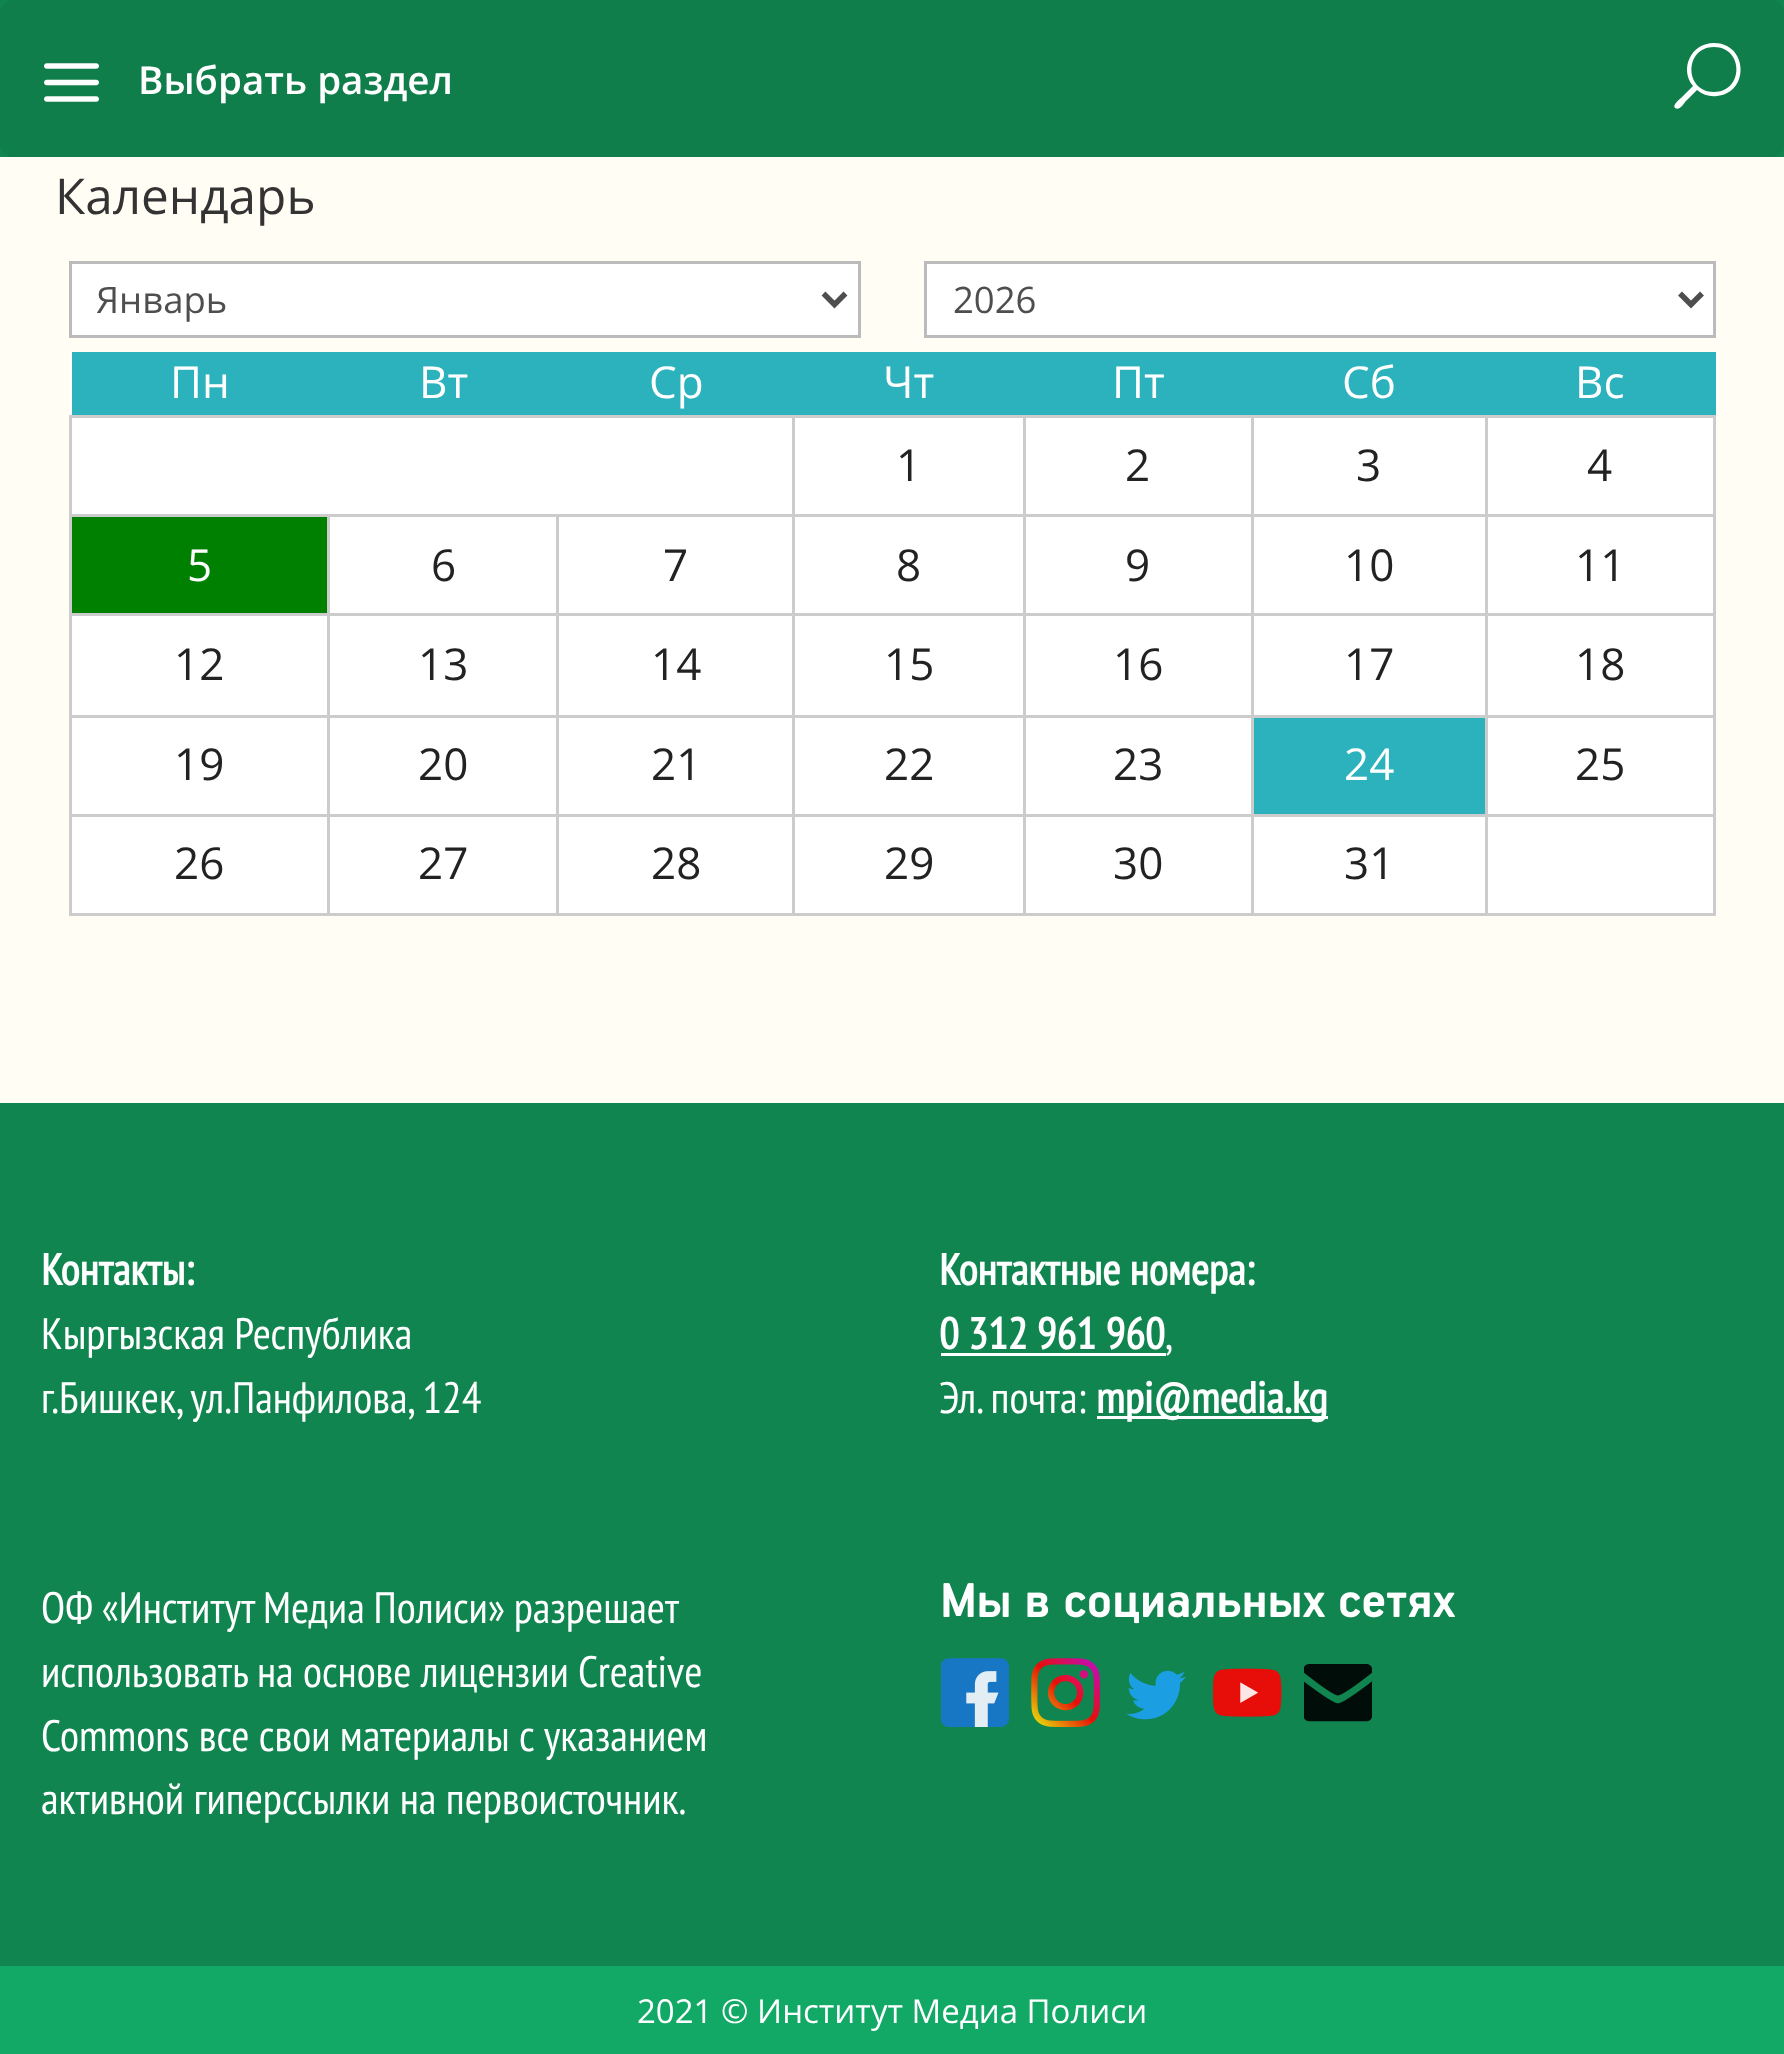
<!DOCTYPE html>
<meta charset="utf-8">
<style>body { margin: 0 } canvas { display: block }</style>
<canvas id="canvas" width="1784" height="2054"></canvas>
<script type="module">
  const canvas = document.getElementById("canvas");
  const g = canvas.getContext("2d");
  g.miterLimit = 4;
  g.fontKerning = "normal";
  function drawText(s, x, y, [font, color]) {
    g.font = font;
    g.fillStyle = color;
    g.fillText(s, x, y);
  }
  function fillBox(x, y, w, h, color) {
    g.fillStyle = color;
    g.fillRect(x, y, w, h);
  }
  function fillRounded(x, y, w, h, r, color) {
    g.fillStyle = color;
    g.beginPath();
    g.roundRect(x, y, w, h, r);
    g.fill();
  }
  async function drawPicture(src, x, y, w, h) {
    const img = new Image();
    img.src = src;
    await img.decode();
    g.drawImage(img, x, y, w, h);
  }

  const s1 = ["600 38.5px Open Sans", "#FFFFFF"];
  const s2 = ["49.5px Open Sans", "#333333"];
  const s3 = ["36.5px Open Sans", "#4E4E4E"];
  const s4 = ["44px Open Sans", "#FFFFFF"];
  const s5 = ["44px Open Sans", "#222222"];
  const s6 = ["bold 44px PT Sans Narrow", "#FFFFFF"];
  const s7 = ["44px PT Sans Narrow", "#FFFFFF"];
  const s8 = ["33px Open Sans", "#FFFFFF"];

  fillBox(0, 0, 1784, 2054, "#FFFDF4");
  fillBox(0, 0, 1784, 157, "#10854F");
  fillRounded(0, 0, 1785, 157, 14, "#0F7E4B");
  await drawPicture("pic1.png", 44, 63, 55, 39);
  drawText("Выбрать раздел", 138, 94, s1);
  g.beginPath();
  g.moveTo(1714, 43);
  g.bezierCurveTo(1691, 43, 1679, 69, 1693, 86);
  g.lineTo(1681, 98);
  g.bezierCurveTo(1680, 99, 1672, 105, 1675, 108);
  g.bezierCurveTo(1679, 111, 1684, 104, 1685, 102);
  g.lineTo(1697, 90);
  g.bezierCurveTo(1703, 95, 1710, 97, 1717, 96);
  g.bezierCurveTo(1750, 93, 1748, 43, 1714, 43);
  g.closePath();
  g.moveTo(1714, 92);
  g.bezierCurveTo(1684, 92, 1684, 47, 1714, 47);
  g.bezierCurveTo(1744, 47, 1744, 92, 1714, 92);
  g.closePath();
  g.fill();
  drawText("Календарь", 55, 214, s2);
  g.fillStyle = "#FFFFFF";
  g.beginPath();
  g.rect(70.5, 262.5, 789, 74);
  g.fill();
  g.strokeStyle = "#BBBBBB";
  g.lineWidth = 3;
  g.stroke();
  g.beginPath();
  g.moveTo(823.5, 293.5);
  g.lineTo(834.5, 304.5);
  g.lineTo(845.5, 293.5);
  g.strokeStyle = "#4E4E4E";
  g.lineWidth = 5.5;
  g.stroke();
  drawText("Январь", 96, 313, s3);
  g.fillStyle = "#FFFFFF";
  g.beginPath();
  g.rect(925.5, 262.5, 789, 74);
  g.fill();
  g.strokeStyle = "#BBBBBB";
  g.lineWidth = 3;
  g.stroke();
  g.beginPath();
  g.moveTo(1680, 293.5);
  g.lineTo(1691, 304.5);
  g.lineTo(1702, 293.5);
  g.strokeStyle = "#4E4E4E";
  g.lineWidth = 5.5;
  g.stroke();
  drawText("2026", 953, 313, s3);
  fillBox(69, 352, 1644, 561, "#FFFFFF");
  fillBox(72, 352, 1644, 63, "#2CB2BC");
  drawText("Пн", 170, 398, s4);
  drawText("Вт", 419, 398, s4);
  drawText("Ср", 649, 398, s4);
  drawText("Чт", 883, 398, s4);
  drawText("Пт", 1112, 398, s4);
  drawText("Сб", 1342, 398, s4);
  drawText("Вс", 1575, 398, s4);
  fillBox(1485, 415, 231, 3, "#CCCCCC");
  fillBox(1485, 514, 231, 3, "#CCCCCC");
  fillBox(1485, 613, 231, 3, "#CCCCCC");
  fillBox(1485, 715, 231, 3, "#CCCCCC");
  fillBox(1485, 814, 231, 3, "#CCCCCC");
  fillBox(1713, 814, 3, 102, "#CCCCCC");
  fillBox(1485, 913, 231, 3, "#CCCCCC");
  fillBox(1485, 814, 3, 102, "#CCCCCC");
  fillBox(1251, 814, 237, 3, "#CCCCCC");
  fillBox(1485, 715, 3, 102, "#CCCCCC");
  fillBox(1251, 715, 237, 3, "#CCCCCC");
  fillBox(1485, 613, 3, 105, "#CCCCCC");
  fillBox(1251, 613, 237, 3, "#CCCCCC");
  fillBox(1485, 514, 3, 102, "#CCCCCC");
  fillBox(1251, 514, 237, 3, "#CCCCCC");
  fillBox(1485, 415, 3, 102, "#CCCCCC");
  fillBox(1251, 415, 237, 3, "#CCCCCC");
  fillBox(1251, 913, 237, 3, "#CCCCCC");
  fillBox(1251, 814, 3, 102, "#CCCCCC");
  fillBox(1023, 814, 231, 3, "#CCCCCC");
  fillBox(1251, 715, 3, 102, "#CCCCCC");
  fillBox(1023, 715, 231, 3, "#CCCCCC");
  fillBox(1251, 613, 3, 105, "#CCCCCC");
  fillBox(1023, 613, 231, 3, "#CCCCCC");
  fillBox(1251, 514, 3, 102, "#CCCCCC");
  fillBox(1023, 514, 231, 3, "#CCCCCC");
  fillBox(1251, 415, 3, 102, "#CCCCCC");
  fillBox(1023, 415, 231, 3, "#CCCCCC");
  fillBox(1023, 913, 231, 3, "#CCCCCC");
  fillBox(1023, 814, 3, 102, "#CCCCCC");
  fillBox(792, 814, 234, 3, "#CCCCCC");
  fillBox(1023, 715, 3, 102, "#CCCCCC");
  fillBox(792, 715, 234, 3, "#CCCCCC");
  fillBox(1023, 613, 3, 105, "#CCCCCC");
  fillBox(792, 613, 234, 3, "#CCCCCC");
  fillBox(1023, 514, 3, 102, "#CCCCCC");
  fillBox(792, 514, 234, 3, "#CCCCCC");
  fillBox(1023, 415, 3, 102, "#CCCCCC");
  fillBox(792, 415, 234, 3, "#CCCCCC");
  fillBox(792, 913, 234, 3, "#CCCCCC");
  fillBox(792, 814, 3, 102, "#CCCCCC");
  fillBox(556, 814, 239, 3, "#CCCCCC");
  fillBox(792, 715, 3, 102, "#CCCCCC");
  fillBox(556, 715, 239, 3, "#CCCCCC");
  fillBox(792, 613, 3, 105, "#CCCCCC");
  fillBox(556, 613, 239, 3, "#CCCCCC");
  fillBox(792, 514, 3, 102, "#CCCCCC");
  fillBox(556, 514, 239, 3, "#CCCCCC");
  fillBox(792, 415, 3, 102, "#CCCCCC");
  fillBox(69, 415, 726, 3, "#CCCCCC");
  fillBox(556, 913, 239, 3, "#CCCCCC");
  fillBox(556, 814, 3, 102, "#CCCCCC");
  fillBox(327, 814, 231, 3, "#CCCCCC");
  fillBox(556, 715, 3, 102, "#CCCCCC");
  fillBox(327, 715, 231, 3, "#CCCCCC");
  fillBox(556, 613, 3, 105, "#CCCCCC");
  fillBox(327, 613, 231, 3, "#CCCCCC");
  fillBox(556, 514, 3, 102, "#CCCCCC");
  fillBox(327, 514, 231, 3, "#CCCCCC");
  fillBox(327, 913, 231, 3, "#CCCCCC");
  fillBox(327, 814, 3, 102, "#CCCCCC");
  fillBox(69, 814, 261, 3, "#CCCCCC");
  fillBox(327, 715, 3, 102, "#CCCCCC");
  fillBox(69, 715, 261, 3, "#CCCCCC");
  fillBox(327, 613, 3, 105, "#CCCCCC");
  fillBox(69, 613, 261, 3, "#CCCCCC");
  fillBox(327, 514, 3, 102, "#CCCCCC");
  fillBox(69, 514, 261, 3, "#CCCCCC");
  fillBox(69, 913, 261, 3, "#CCCCCC");
  fillBox(69, 814, 3, 102, "#CCCCCC");
  fillBox(69, 715, 3, 102, "#CCCCCC");
  fillBox(69, 613, 3, 105, "#CCCCCC");
  fillBox(69, 514, 3, 102, "#CCCCCC");
  fillBox(69, 415, 3, 102, "#CCCCCC");
  drawText("1", 896, 481, s5);
  drawText("2", 1125, 481, s5);
  drawText("3", 1356, 481, s5);
  fillBox(1713, 715, 3, 102, "#CCCCCC");
  fillBox(1713, 613, 3, 105, "#CCCCCC");
  fillBox(1713, 514, 3, 102, "#CCCCCC");
  fillBox(1713, 415, 3, 102, "#CCCCCC");
  drawText("4", 1587, 481, s5);
  fillBox(72, 517, 255, 96, "#008000");
  drawText("5", 187, 581, s4);
  drawText("6", 431, 581, s5);
  drawText("7", 663, 581, s5);
  drawText("8", 896, 581, s5);
  drawText("9", 1125, 581, s5);
  drawText("10", 1344, 581, s5);
  drawText("11", 1575, 581, s5);
  drawText("12", 174, 680, s5);
  drawText("13", 418, 680, s5);
  drawText("14", 651, 680, s5);
  drawText("15", 884, 680, s5);
  drawText("16", 1113, 680, s5);
  drawText("17", 1344, 680, s5);
  drawText("18", 1575, 680, s5);
  drawText("19", 174, 780, s5);
  drawText("20", 418, 780, s5);
  drawText("21", 651, 780, s5);
  drawText("22", 884, 780, s5);
  drawText("23", 1113, 780, s5);
  fillBox(1254, 718, 231, 96, "#2CB2BC");
  drawText("24", 1344, 780, s4);
  drawText("25", 1575, 780, s5);
  drawText("26", 174, 879, s5);
  drawText("27", 418, 879, s5);
  drawText("28", 651, 879, s5);
  drawText("29", 884, 879, s5);
  drawText("30", 1113, 879, s5);
  drawText("31", 1344, 879, s5);
  fillBox(0, 1103, 1784, 863, "#10854F");
  drawText("Контакты:", 41, 1285, s6);
  drawText("Кыргызская Республика", 41, 1349, s7);
  drawText("г.Бишкек, ул.Панфилова, 124", 41, 1413, s7);
  drawText("Контактные номера:", 939, 1285, s6);
  drawText("0 312 961 960", 939, 1349, s6);
  fillBox(941, 1353, 225, 3, "#FFFFFF");
  drawText(",", 1165, 1349, s7);
  drawText("Эл. почта:", 939, 1413, s7);
  fillBox(1097, 1416, 231, 3, "#FFFFFF");
  drawText("mpi@media.kg", 1096, 1413, s6);
  g.wordSpacing = "-0.5px";
  drawText("ОФ «Институт Медиа Полиси» разрешает", 41, 1623, s7);
  g.wordSpacing = "0px";
  drawText("использовать на основе лицензии Creative", 41, 1687, s7);
  drawText("Commons все свои материалы с указанием", 41, 1751, s7);
  drawText("активной гиперссылки на первоисточник.", 41, 1814, s7);
  await drawPicture("pic2.png", 943, 1583, 512, 41);
  await drawPicture("pic3.png", 941, 1658, 68, 69);
  await drawPicture("pic4.png", 1031, 1658, 69, 69);
  await drawPicture("pic5.png", 1126, 1670, 60, 50);
  await drawPicture("pic6.png", 1213, 1668, 69, 49);
  await drawPicture("pic7.png", 1304, 1664, 68, 58);
  fillBox(0, 1966, 1784, 88, "#12A967");
  drawText("2021 © Институт Медиа Полиси", 637, 2023, s8);
</script>
